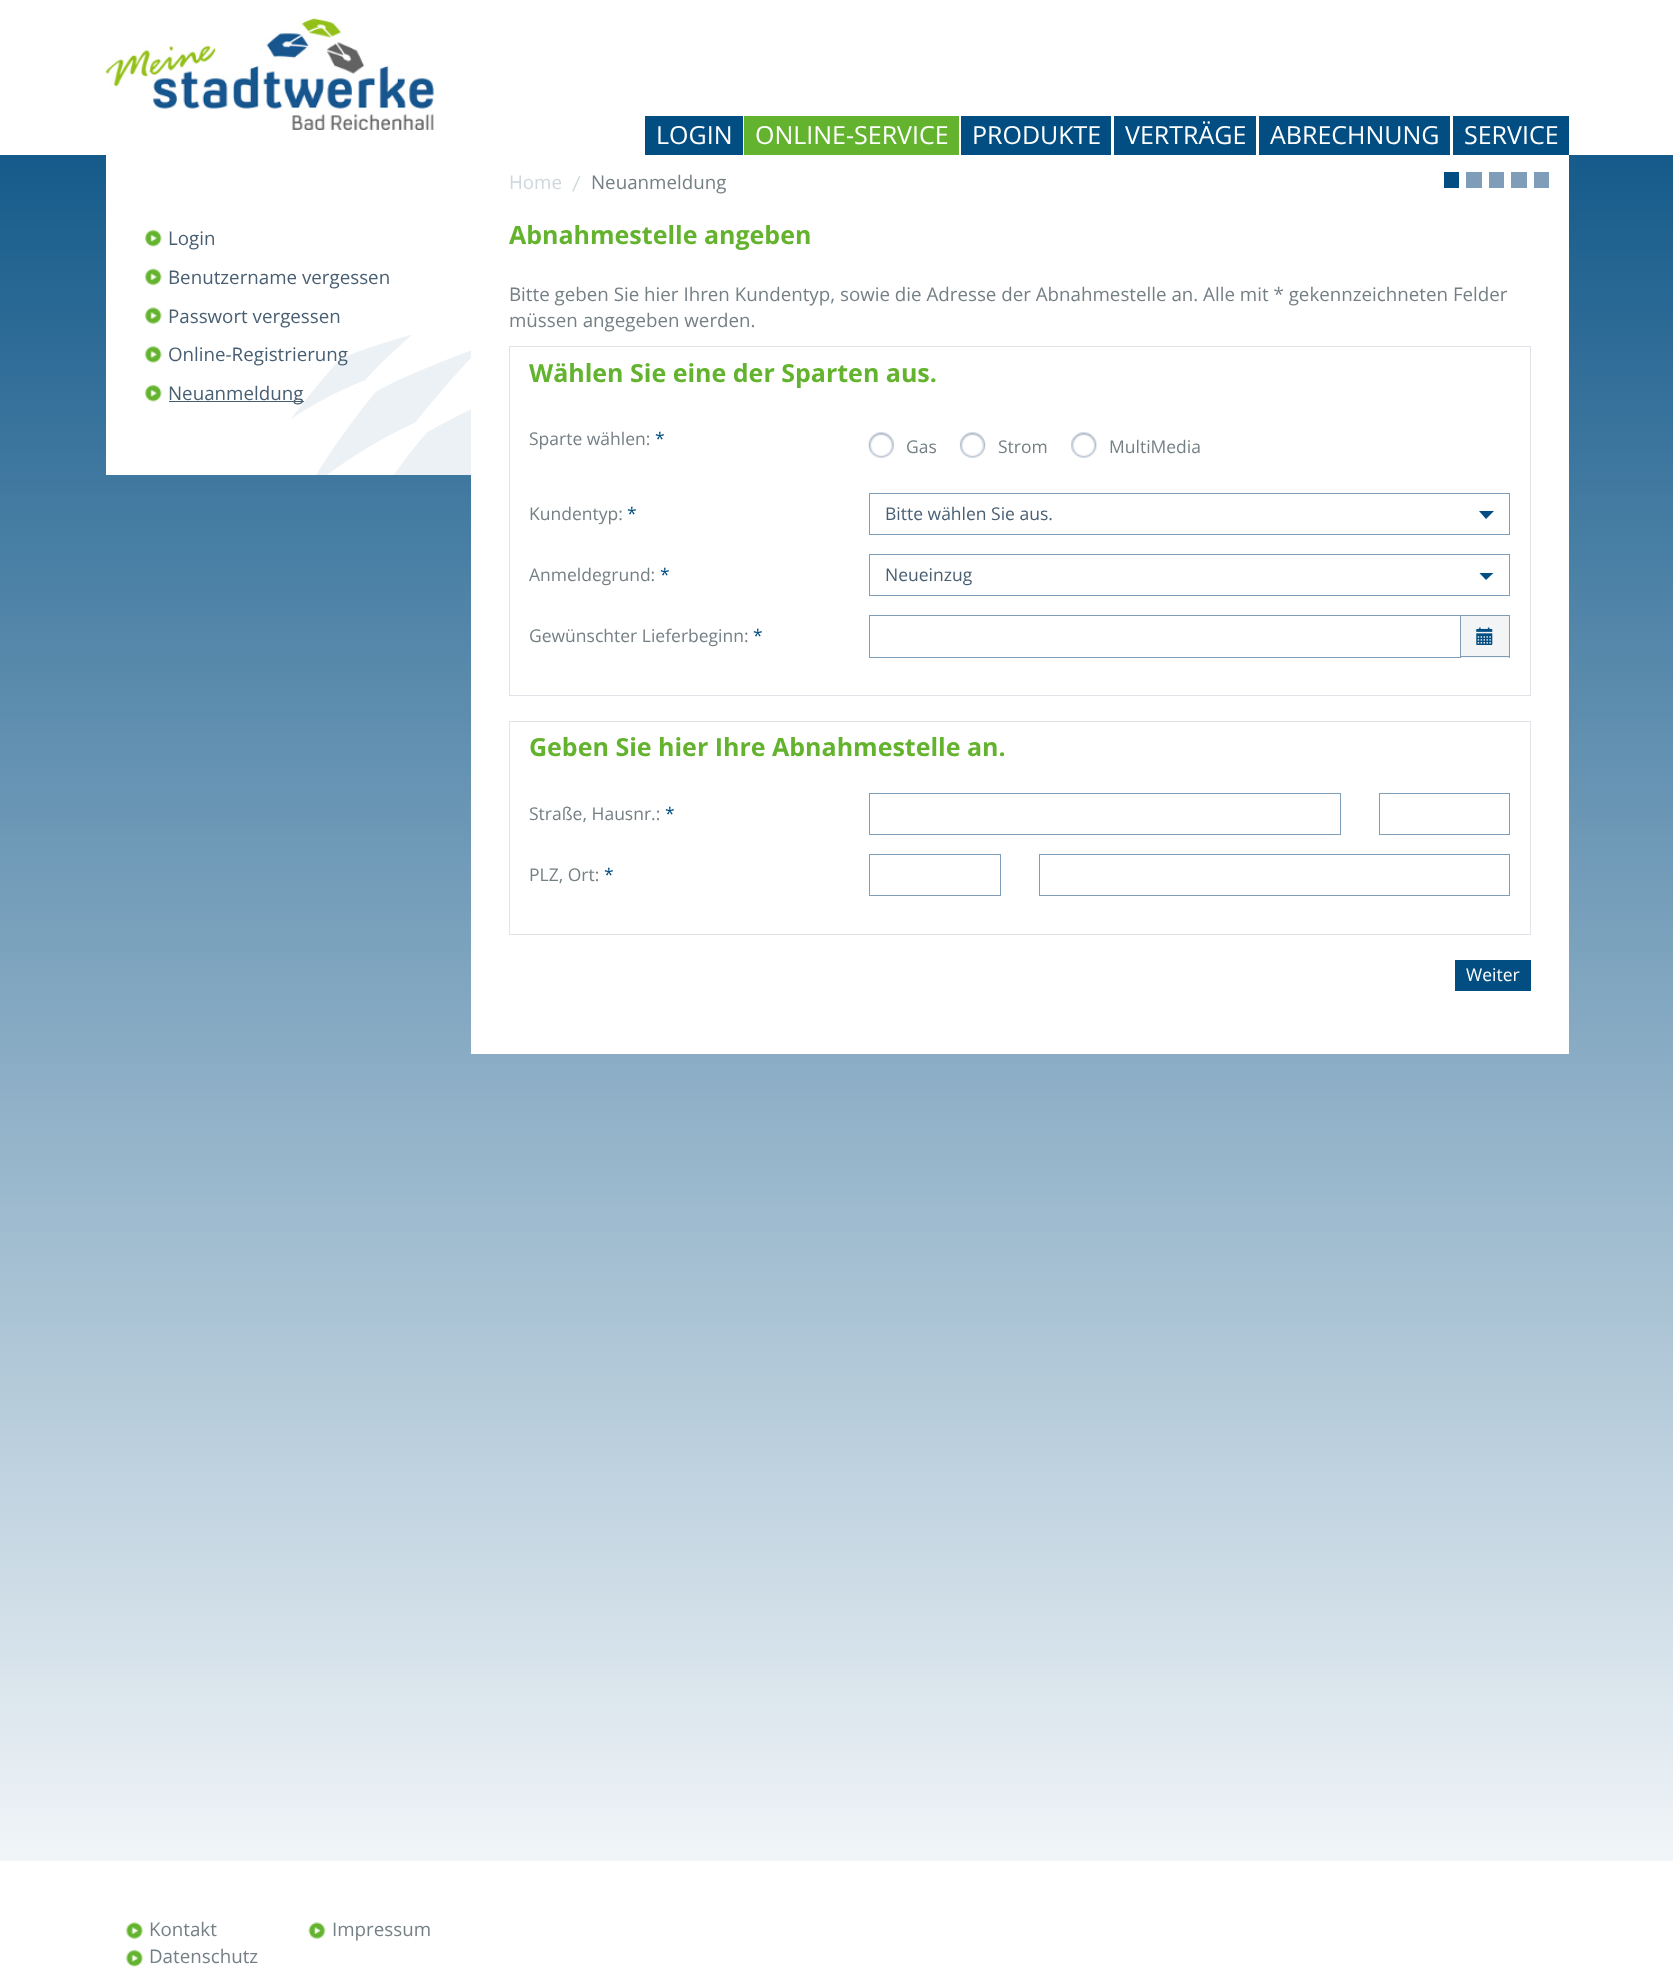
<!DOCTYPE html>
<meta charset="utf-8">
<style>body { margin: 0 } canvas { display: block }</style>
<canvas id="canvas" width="1673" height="1969"></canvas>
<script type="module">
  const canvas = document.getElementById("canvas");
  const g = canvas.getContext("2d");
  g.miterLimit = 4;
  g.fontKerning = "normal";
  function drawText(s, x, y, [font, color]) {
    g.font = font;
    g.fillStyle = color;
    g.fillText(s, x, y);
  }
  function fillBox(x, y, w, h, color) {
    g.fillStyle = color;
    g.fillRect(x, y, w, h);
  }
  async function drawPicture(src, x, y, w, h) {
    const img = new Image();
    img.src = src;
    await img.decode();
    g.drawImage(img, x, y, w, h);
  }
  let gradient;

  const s1 = ["25px Open Sans", "#FFFFFF"];
  const s2 = ["18.75px Open Sans", "#485F73"];
  const s3 = ["18.75px Open Sans", "#CDD7DC"];
  const s4 = ["18.75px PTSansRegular", "#CDD7DC"];
  const s5 = ["18.75px Open Sans", "#758085"];
  const s6 = ["bold 25px Open Sans", "#63B32E"];
  const s7 = ["17.5px Open Sans", "#758085"];
  const s8 = ["17.5px Open Sans", "#024D81"];
  const s9 = ["17.5px Open Sans", "#485F73"];
  const s10 = ["17.5px Open Sans", "#FFFFFF"];

  fillBox(0, 0, 1673, 1969, "#FFFFFF");
  gradient = g.createLinearGradient(837, 0, 837, 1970);
  gradient.addColorStop(0, "#024D81");
  gradient.addColorStop(1, "#FFFFFF");
  g.fillStyle = gradient;
  g.fillRect(0, 155, 1673, 1706);
  await drawPicture("pic1.png", 106, 18, 328, 112);
  fillBox(645, 116, 98, 39, "#024D81");
  drawText("LOGIN", 656, 144, s1);
  fillBox(744, 116, 215, 39, "#63B32E");
  drawText("ONLINE-SERVICE", 755, 144, s1);
  fillBox(961, 116, 150, 39, "#024D81");
  drawText("PRODUKTE", 972, 144, s1);
  fillBox(1114, 116, 142, 39, "#024D81");
  drawText("VERTRÄGE", 1125, 144, s1);
  fillBox(1259, 116, 191, 39, "#024D81");
  drawText("ABRECHNUNG", 1270, 144, s1);
  fillBox(1453, 116, 116, 39, "#024D81");
  drawText("SERVICE", 1464, 144, s1);
  fillBox(106, 155, 365, 320, "#FFFFFF");
  await drawPicture("pic2.png", 291, 335, 180, 140);
  await drawPicture("pic3.png", 144, 229, 18, 18);
  drawText("Login", 168, 245, s2);
  await drawPicture("pic4.png", 144, 268, 18, 18);
  drawText("Benutzername vergessen", 168, 284, s2);
  await drawPicture("pic5.png", 144, 307, 18, 17);
  drawText("Passwort vergessen", 168, 323, s2);
  await drawPicture("pic6.png", 144, 346, 18, 17);
  drawText("Online-Registrierung", 168, 361, s2);
  await drawPicture("pic3.png", 144, 384, 18, 18);
  fillBox(169, 401, 135, 1, "#485F73");
  drawText("Neuanmeldung", 168, 400, s2);
  fillBox(471, 155, 1098, 899, "#FFFFFF");
  drawText("Home", 509, 189, s3);
  drawText("/", 573, 189, s4);
  drawText("Neuanmeldung", 591, 189, s5);
  fillBox(1444, 172, 15, 16, "#024D81");
  fillBox(1466, 172, 16, 16, "#7F9DB9");
  fillBox(1489, 172, 15, 16, "#7F9DB9");
  fillBox(1511, 172, 16, 16, "#7F9DB9");
  fillBox(1534, 172, 15, 16, "#7F9DB9");
  drawText("Abnahmestelle angeben", 509, 244, s6);
  drawText("Bitte geben Sie hier Ihren Kundentyp, sowie die Adresse der Abnahmestelle an. Alle mit * gekennzeichneten Felder", 509, 301, s5);
  drawText("müssen angegeben werden.", 509, 327, s5);
  g.strokeStyle = "#E0E4E8";
  g.strokeRect(509.5, 346.5, 1021, 349);
  drawText("Wählen Sie eine der Sparten aus.", 529, 382, s6);
  drawText("Sparte wählen:", 529, 445, s7);
  drawText("*", 655, 445, s8);
  await drawPicture("pic7.png", 868, 432, 26, 26);
  drawText("Gas", 906, 453, s7);
  await drawPicture("pic8.png", 959, 432, 27, 26);
  drawText("Strom", 998, 453, s7);
  await drawPicture("pic9.png", 1071, 432, 26, 26);
  drawText("MultiMedia", 1109, 453, s7);
  drawText("Kundentyp:", 529, 520, s7);
  drawText("*", 627, 520, s8);
  g.strokeStyle = "#7F9DB9";
  g.strokeRect(869.5, 493.5, 640, 41);
  drawText("Bitte wählen Sie aus.", 885, 520, s9);
  g.fillStyle = "#024D81";
  g.beginPath();
  g.moveTo(1479, 511);
  g.lineTo(1494, 511);
  g.lineTo(1486, 519);
  g.closePath();
  g.fill();
  drawText("Anmeldegrund:", 529, 581, s7);
  drawText("*", 660, 581, s8);
  g.strokeRect(869.5, 554.5, 640, 41);
  drawText("Neueinzug", 885, 581, s9);
  g.fillStyle = "#024D81";
  g.beginPath();
  g.moveTo(1479, 572.5);
  g.lineTo(1494, 572.5);
  g.lineTo(1486, 580);
  g.closePath();
  g.fill();
  g.strokeStyle = "#FFFFFF";
  g.lineWidth = 5;
  g.strokeRect(1476.5, 570.5, 20, 12);
  drawText("Gewünschter Lieferbeginn:", 529, 642, s7);
  drawText("*", 753, 642, s8);
  g.strokeStyle = "#7F9DB9";
  g.lineWidth = 1;
  g.strokeRect(869.5, 615.5, 591, 42);
  fillBox(1461, 616, 48, 42, "#F3F4F6");
  fillBox(1461, 615, 49, 1, "#7F9DB9");
  fillBox(1509, 615, 1, 43, "#7F9DB9");
  fillBox(1461, 656, 49, 1, "#7F9DB9");
  await drawPicture("pic10.png", 1476, 627, 17, 18);
  g.strokeStyle = "#E0E4E8";
  g.strokeRect(509.5, 721.5, 1021, 213);
  drawText("Geben Sie hier Ihre Abnahmestelle an.", 529, 756, s6);
  drawText("Straße, Hausnr.:", 529, 820, s7);
  drawText("*", 665, 820, s8);
  g.strokeStyle = "#7F9DB9";
  g.strokeRect(869.5, 793.5, 471, 41);
  g.strokeRect(1379.5, 793.5, 130, 41);
  drawText("PLZ, Ort:", 529, 881, s7);
  drawText("*", 604, 881, s8);
  g.strokeRect(869.5, 854.5, 131, 41);
  g.strokeRect(1039.5, 854.5, 470, 41);
  fillBox(1455, 960, 76, 31, "#024D81");
  drawText("Weiter", 1466, 981, s10);
  await drawPicture("pic11.png", 126, 1922, 17, 17);
  drawText("Kontakt", 149, 1936, s5);
  await drawPicture("pic12.png", 308, 1922, 18, 17);
  drawText("Impressum", 332, 1936, s5);
  await drawPicture("pic13.png", 126, 1949, 17, 18);
  drawText("Datenschutz", 149, 1963, s5);
</script>
